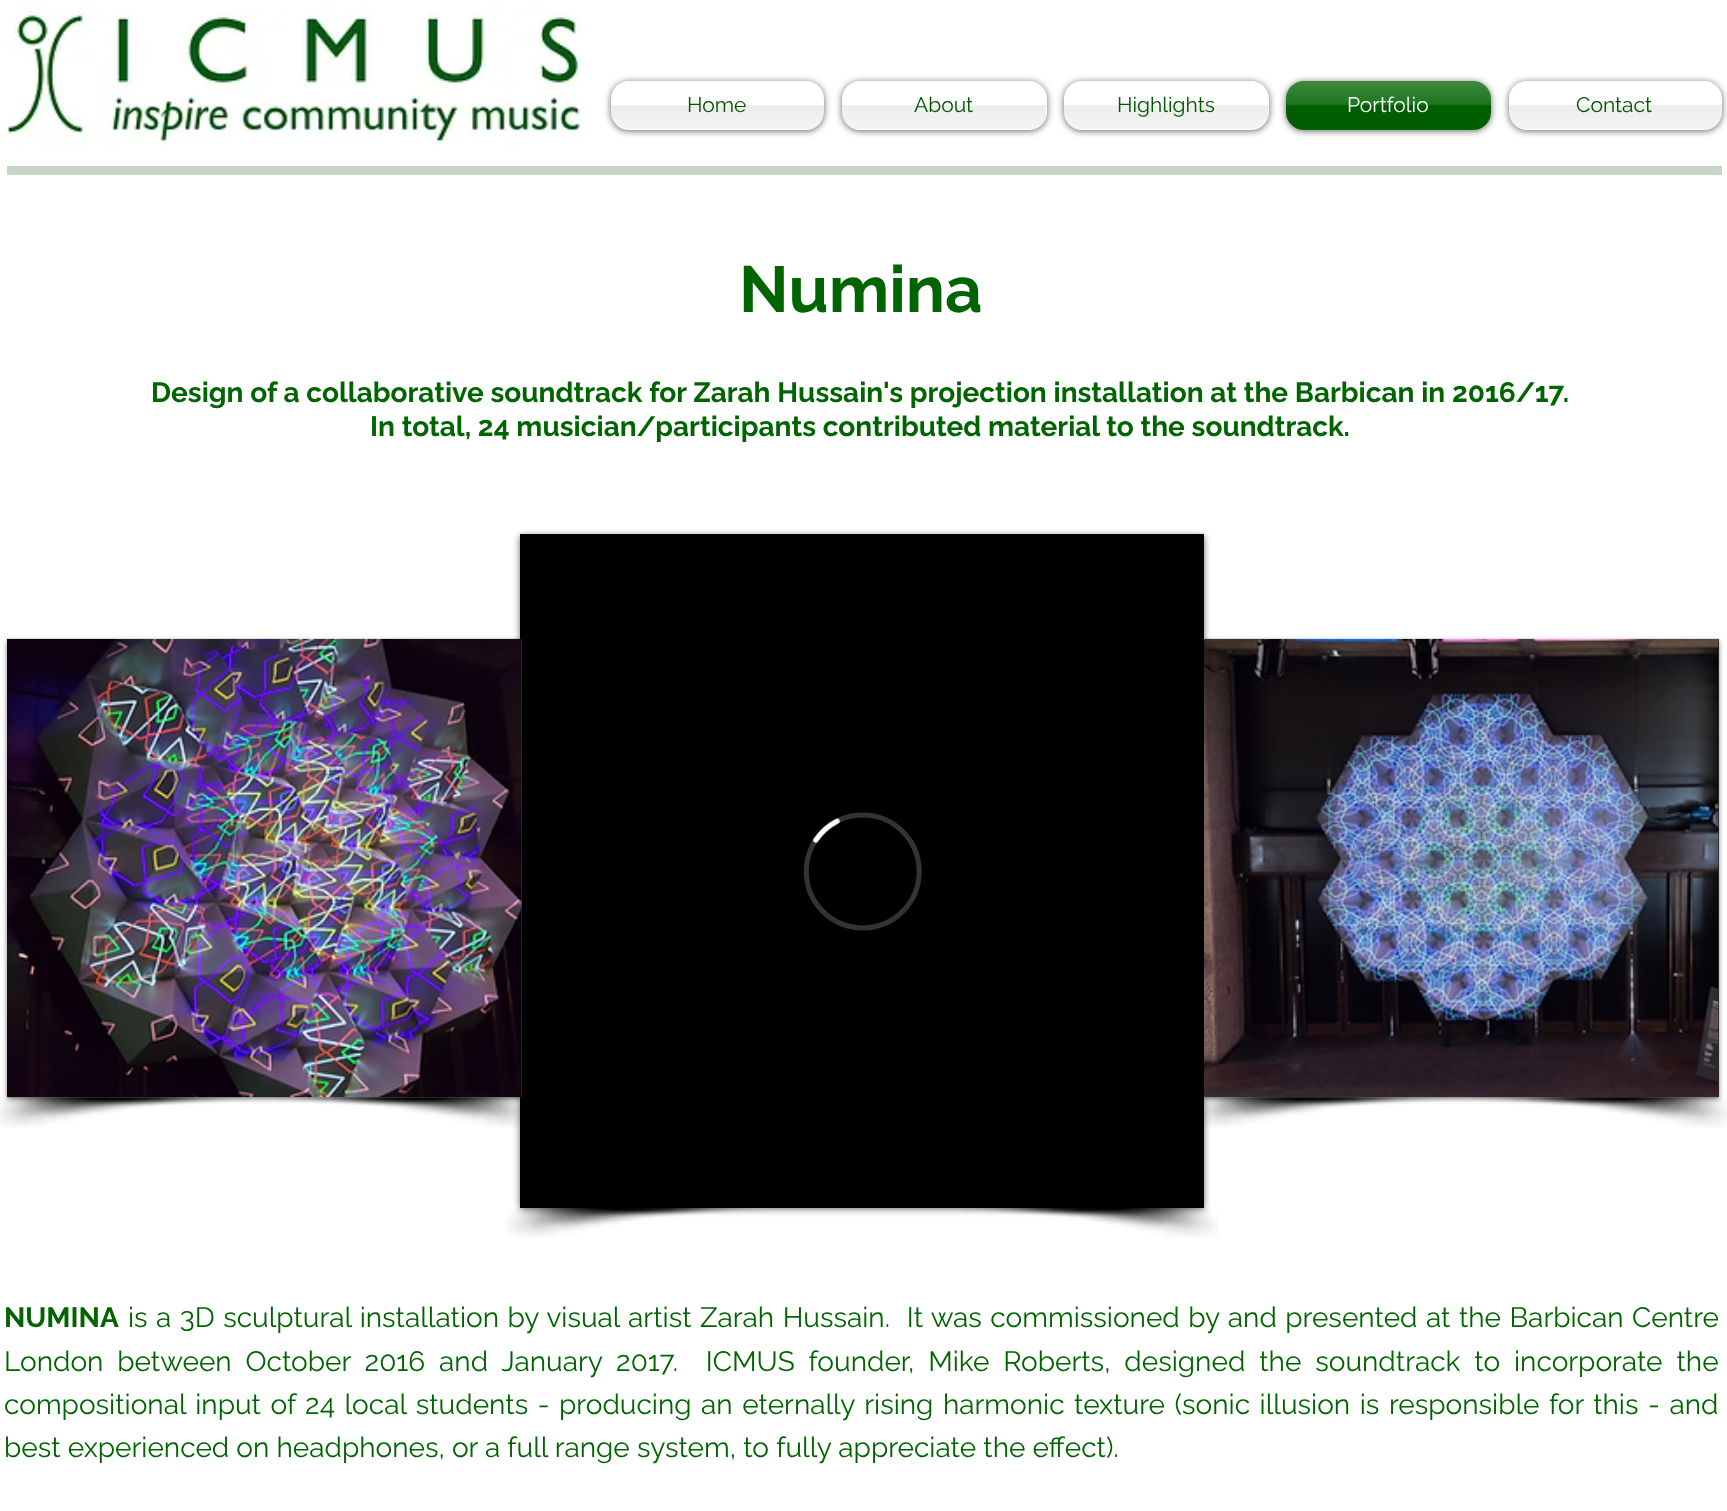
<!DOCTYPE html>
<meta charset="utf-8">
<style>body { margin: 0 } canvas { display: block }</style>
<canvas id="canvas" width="1727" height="1511"></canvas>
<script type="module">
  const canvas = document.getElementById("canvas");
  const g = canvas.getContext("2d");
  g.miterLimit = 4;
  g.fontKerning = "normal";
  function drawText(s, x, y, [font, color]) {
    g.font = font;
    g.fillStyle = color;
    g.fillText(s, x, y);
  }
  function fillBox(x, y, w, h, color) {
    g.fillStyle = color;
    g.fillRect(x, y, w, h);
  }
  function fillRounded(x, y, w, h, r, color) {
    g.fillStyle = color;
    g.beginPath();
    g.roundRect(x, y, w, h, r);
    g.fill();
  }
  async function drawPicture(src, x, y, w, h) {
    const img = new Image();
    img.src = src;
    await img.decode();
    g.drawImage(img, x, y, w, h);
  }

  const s1 = ["21px Raleway", "#005400"];
  const s2 = ["21px Raleway", "#FFFFFF"];
  const s3 = ["bold 65px Raleway", "#006400"];
  const s4 = ["bold 28px Raleway", "#006400"];
  const s5 = ["28px Raleway", "#006400"];

  fillBox(0, 0, 1727, 1511, "#FFFFFF");
  await drawPicture("pic1.png", 7, 5, 575, 141);
  g.fillStyle = "rgba(0, 0, 0, 0.6)";
  g.filter = "blur(3.5px)";
  g.beginPath();
  g.roundRect(611, 82, 213, 49, 18);
  g.fill();
  g.filter = "none";
  fillRounded(611, 81, 213, 49, 18, "#FFFFFF");
  await drawPicture("pic2.png", 611, 105, 213, 24);
  drawText("Home", 687, 112, s1);
  g.fillStyle = "rgba(0, 0, 0, 0.6)";
  g.filter = "blur(3.5px)";
  g.beginPath();
  g.roundRect(842, 82, 205, 49, 18);
  g.fill();
  g.filter = "none";
  fillRounded(842, 81, 205, 49, 18, "#FFFFFF");
  await drawPicture("pic3.png", 842, 105, 204, 24);
  drawText("About", 914, 112, s1);
  g.fillStyle = "rgba(0, 0, 0, 0.6)";
  g.filter = "blur(3.5px)";
  g.beginPath();
  g.roundRect(1064, 82, 205, 49, 18);
  g.fill();
  g.filter = "none";
  fillRounded(1064, 81, 205, 49, 18, "#FFFFFF");
  await drawPicture("pic4.png", 1064, 83, 205, 46);
  drawText("Highlights", 1117, 112, s1);
  g.fillStyle = "rgba(0, 0, 0, 0.6)";
  g.filter = "blur(3.5px)";
  g.beginPath();
  g.roundRect(1286, 82, 205, 49, 18);
  g.fill();
  g.filter = "none";
  fillRounded(1286, 81, 205, 49, 18, "#006400");
  await drawPicture("pic5.png", 1286, 81, 205, 48);
  drawText("Portfolio", 1347, 112, s2);
  g.fillStyle = "rgba(0, 0, 0, 0.6)";
  g.filter = "blur(3.5px)";
  g.beginPath();
  g.roundRect(1509, 82, 213, 49, 18);
  g.fill();
  g.filter = "none";
  fillRounded(1509, 81, 213, 49, 18, "#FFFFFF");
  await drawPicture("pic6.png", 1509, 83, 213, 46);
  drawText("Contact", 1576, 112, s1);
  fillBox(7, 166, 1715, 9, "#C7D5C6");
  drawText("Numina", 739, 312, s3);
  drawText("Design of a collaborative soundtrack for Zarah Hussain's projection installation at the Barbican in 2016/17.", 151, 402, s4);
  drawText("In total, 24 musician/participants contributed material to the soundtrack.", 370, 436, s4);
  g.fillStyle = "rgba(0, 0, 0, 0.6)";
  g.filter = "blur(3.5px)";
  g.beginPath();
  g.rect(520, 536, 684, 673);
  g.fill();
  g.filter = "none";
  fillBox(520, 534, 684, 674, "#000000");
  g.fillStyle = "rgba(0, 0, 0, 0.5)";
  g.filter = "blur(2.5px)";
  g.beginPath();
  g.rect(7, 641, 515, 458);
  g.fill();
  g.filter = "none";
  fillBox(521, 639, 1, 458, "#2F2E2E");
  await drawPicture("pic8.png", 0, 1097, 252, 31);
  await drawPicture("pic7.png", 7, 638, 515, 460);
  await drawPicture("pic9.png", 276, 1097, 244, 31);
  await drawPicture("pic10.png", 803, 812, 119, 119);
  await drawPicture("pic11.png", 505, 1208, 257, 30);
  await drawPicture("pic12.png", 962, 1208, 257, 30);
  g.fillStyle = "rgba(0, 0, 0, 0.5)";
  g.filter = "blur(2.5px)";
  g.beginPath();
  g.rect(1204, 641, 515, 458);
  g.fill();
  g.filter = "none";
  fillBox(1718, 639, 1, 458, "#2F2E2E");
  await drawPicture("pic14.png", 1204, 1097, 245, 31);
  await drawPicture("pic13.png", 1204, 638, 515, 460);
  await drawPicture("pic15.png", 1473, 1097, 254, 31);
  drawText("NUMINA", 4, 1327, s4);
  g.wordSpacing = "1.3px";
  drawText("is a 3D sculptural installation by visual artist Zarah Hussain.  It was commissioned by and presented at the Barbican Centre", 128, 1327, s5);
  g.wordSpacing = "6.75px";
  drawText("London between October 2016 and January 2017.  ICMUS founder, Mike Roberts, designed the soundtrack to incorporate the", 4, 1371, s5);
  g.wordSpacing = "2.4px";
  drawText("compositional input of 24 local students - producing an eternally rising harmonic texture (sonic illusion is responsible for this - and", 4, 1414, s5);
  g.wordSpacing = "0px";
  drawText("best experienced on headphones, or a full range system, to fully appreciate the effect).", 4, 1457, s5);
</script>
